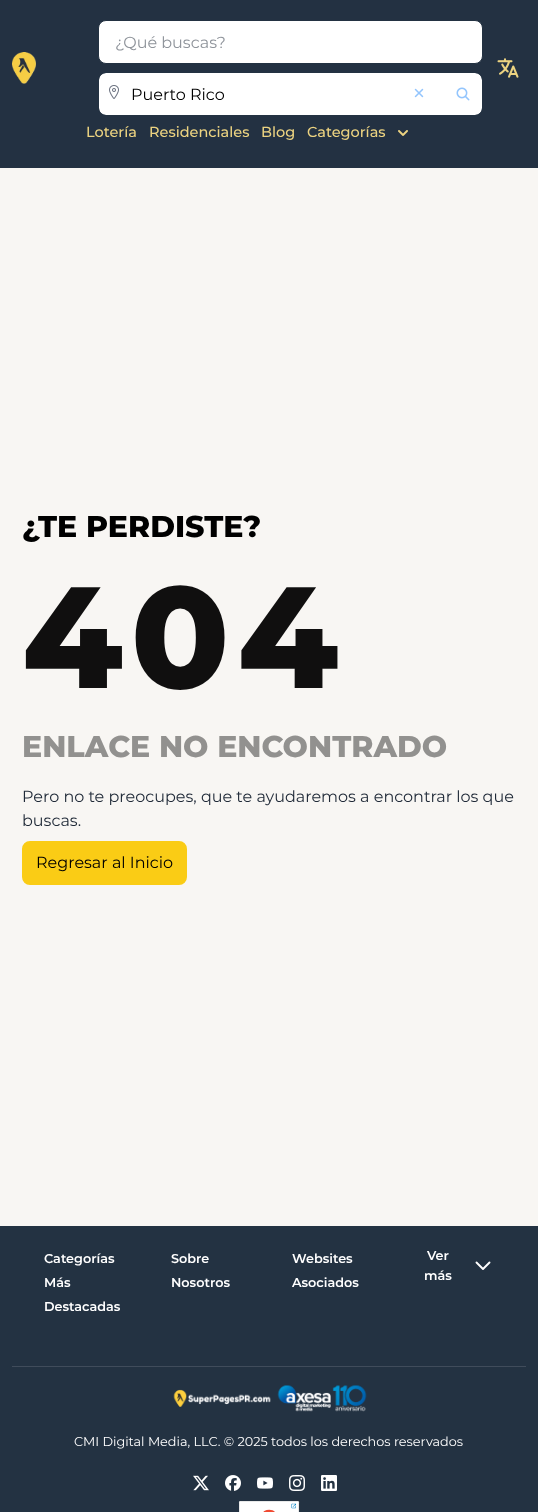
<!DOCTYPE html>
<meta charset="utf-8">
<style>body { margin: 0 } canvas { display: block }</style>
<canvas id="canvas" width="538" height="1512"></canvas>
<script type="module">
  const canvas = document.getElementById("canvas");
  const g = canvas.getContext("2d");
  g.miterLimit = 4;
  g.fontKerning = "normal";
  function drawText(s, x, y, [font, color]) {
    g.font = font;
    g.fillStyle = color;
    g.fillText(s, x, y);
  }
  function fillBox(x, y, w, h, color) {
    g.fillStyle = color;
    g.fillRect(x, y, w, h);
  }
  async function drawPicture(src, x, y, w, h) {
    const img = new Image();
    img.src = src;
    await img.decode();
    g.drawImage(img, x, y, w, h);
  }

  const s1 = ["16px Montserrat", "#8F949B"];
  const s2 = ["16px Montserrat", "#000000"];
  const s3 = ["500 14.5px Montserrat", "#ECD381"];
  const s4 = ["800 30px Montserrat", "#000000"];
  const s5 = ["800 144px Montserrat", "#100F0F"];
  const s6 = ["800 30px Montserrat", "#92918F"];
  const s7 = ["16px Montserrat", "#1F2937"];
  const s8 = ["600 12.8px Montserrat", "#FFFFFF"];
  const s9 = ["12.8px Montserrat", "#FFFFFF"];

  fillBox(0, 0, 538, 1512, "#F8F6F3");
  fillBox(0, 0, 538, 168, "#233142");
  await drawPicture("pic1.png", 12, 52, 24, 32);
  g.fillStyle = "#FFFFFF";
  g.beginPath();
  g.roundRect(98.5, 20.5, 384, 43, 7.5);
  g.fill();
  g.strokeStyle = "#233242";
  g.stroke();
  drawText("¿Qué buscas?", 115, 48, s1);
  g.fillStyle = "#FFFFFF";
  g.beginPath();
  g.roundRect(99, 73, 320, 42, [7, 0, 0, 7]);
  g.fill();
  g.fillStyle = "#233242";
  g.beginPath();
  g.moveTo(106, 72);
  g.lineTo(419, 72);
  g.lineTo(419, 116);
  g.lineTo(106, 116);
  g.bezierCurveTo(102, 116, 98, 112, 98, 108);
  g.lineTo(98, 80);
  g.bezierCurveTo(98, 76, 102, 72, 106, 72);
  g.closePath();
  g.moveTo(106, 73);
  g.lineTo(419, 73);
  g.lineTo(419, 115);
  g.lineTo(106, 115);
  g.bezierCurveTo(102, 115, 99, 112, 99, 108);
  g.lineTo(99, 80);
  g.bezierCurveTo(99, 76, 102, 73, 106, 73);
  g.closePath();
  g.fill("evenodd");
  await drawPicture("pic2.png", 109, 85, 10, 14);
  drawText("Puerto Rico", 131, 100, s2);
  g.fillStyle = "#FFFFFF";
  g.beginPath();
  g.roundRect(419, 73, 63, 42, [0, 7, 7, 0]);
  g.fill();
  g.fillStyle = "#233242";
  g.beginPath();
  g.moveTo(419, 72);
  g.lineTo(475, 72);
  g.bezierCurveTo(479, 72, 483, 76, 483, 80);
  g.lineTo(483, 108);
  g.bezierCurveTo(483, 112, 479, 116, 475, 116);
  g.lineTo(419, 116);
  g.closePath();
  g.moveTo(419, 73);
  g.lineTo(475, 73);
  g.bezierCurveTo(479, 73, 482, 76, 482, 80);
  g.lineTo(482, 108);
  g.bezierCurveTo(482, 112, 479, 115, 475, 115);
  g.lineTo(419, 115);
  g.closePath();
  g.fill("evenodd");
  await drawPicture("pic3.png", 456, 87, 14, 14);
  await drawPicture("pic4.png", 414, 88, 10, 10);
  await drawPicture("pic5.png", 497, 58, 22, 20);
  drawText("Lotería", 86, 137, s3);
  drawText("Residenciales", 149, 137, s3);
  drawText("Blog", 261, 137, s3);
  drawText("Categorías", 307, 137, s3);
  await drawPicture("pic6.png", 398, 130, 10, 6);
  drawText("¿TE PERDISTE?", 22, 537, s4);
  g.letterSpacing = "8px";
  drawText("404", 22, 688, s5);
  g.letterSpacing = "0px";
  drawText("ENLACE NO ENCONTRADO", 22, 757, s6);
  drawText("Pero no te preocupes, que te ayudaremos a encontrar los que", 22, 802, s7);
  drawText("buscas.", 22, 826, s7);
  g.fillStyle = "#FACC15";
  g.beginPath();
  g.roundRect(23, 842, 163, 42, 7);
  g.fill();
  g.strokeStyle = "#FACC15";
  g.lineWidth = 2;
  g.stroke();
  drawText("Regresar al Inicio", 36, 868, s2);
  fillBox(0, 1226, 538, 286, "#233242");
  drawText("Categorías", 44, 1263, s8);
  drawText("Más", 44, 1287, s8);
  drawText("Destacadas", 44, 1311, s8);
  drawText("Sobre", 171, 1263, s8);
  drawText("Nosotros", 171, 1287, s8);
  drawText("Websites", 292, 1263, s8);
  drawText("Asociados", 292, 1287, s8);
  drawText("Ver", 427, 1260, s8);
  drawText("más", 424, 1280, s8);
  g.beginPath();
  g.moveTo(489.5, 1262.5);
  g.lineTo(483, 1269);
  g.lineTo(476.5, 1262.5);
  g.strokeStyle = "#FFFFFF";
  g.lineWidth = 1.9;
  g.lineCap = "round";
  g.lineJoin = "round";
  g.stroke();
  fillBox(12, 1366, 514, 1, "#404C5B");
  await drawPicture("pic7.png", 173, 1385, 194, 27);
  drawText("CMI Digital Media, LLC. © 2025 todos los derechos reservados", 74, 1446, s9);
  await drawPicture("pic8.png", 193, 1475, 16, 16);
  await drawPicture("pic9.png", 225, 1475, 16, 16);
  await drawPicture("pic10.png", 257, 1477, 16, 12);
  await drawPicture("pic11.png", 289, 1475, 16, 16);
  await drawPicture("pic12.png", 321, 1475, 16, 16);
  await drawPicture("pic13.png", 238, 1501, 62, 11);
</script>
